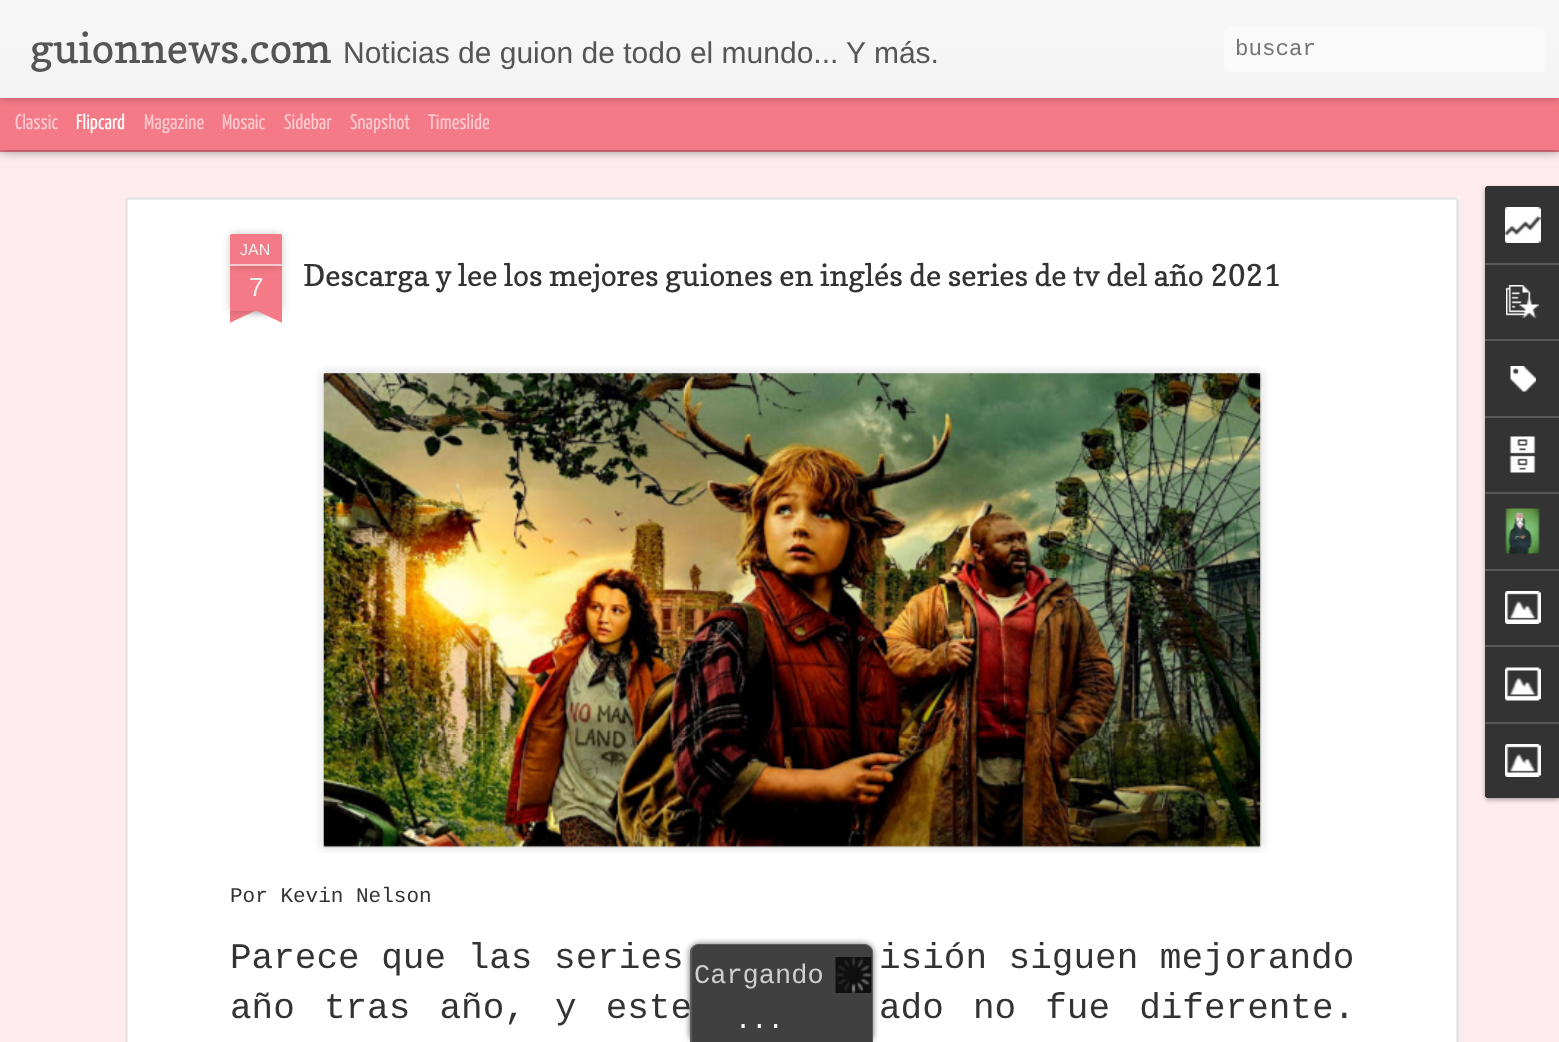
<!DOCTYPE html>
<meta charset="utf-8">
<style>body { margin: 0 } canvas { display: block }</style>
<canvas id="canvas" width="1559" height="1042"></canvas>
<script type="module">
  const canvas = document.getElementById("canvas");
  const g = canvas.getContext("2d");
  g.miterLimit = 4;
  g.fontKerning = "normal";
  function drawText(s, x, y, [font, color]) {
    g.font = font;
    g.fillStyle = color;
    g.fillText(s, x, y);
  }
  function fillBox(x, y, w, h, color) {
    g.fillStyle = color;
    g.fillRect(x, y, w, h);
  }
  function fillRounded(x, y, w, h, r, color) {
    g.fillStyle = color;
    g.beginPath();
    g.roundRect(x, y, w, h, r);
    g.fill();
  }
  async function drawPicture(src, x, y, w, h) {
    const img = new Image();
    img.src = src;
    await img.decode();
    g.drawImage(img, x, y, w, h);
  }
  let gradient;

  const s1 = ["42px Copse", "#555555"];
  const s2 = ["30px Liberation Sans", "#555555"];
  const s3 = ["22.5px Liberation Mono", "#757575"];
  const s4 = ["200 21px Yanone Kaffeesatz", "#FACACF"];
  const s5 = ["200 21px Yanone Kaffeesatz", "#FFFFFF"];
  const s6 = ["16px Liberation Sans", "#EEEEEE"];
  const s7 = ["26px Liberation Sans", "#EEEEEE"];
  const s8 = ["30px Copse", "#333333"];
  const s9 = ["21px Liberation Mono", "#333333"];
  const s10 = ["36px Liberation Mono", "#333333"];
  const s11 = ["27px Liberation Mono", "#CFCFCF"];
  const s12 = ["27px Liberation Mono", "#FFFFFF"];

  fillBox(0, 0, 1559, 1042, "#F37A86");
  fillBox(0, 152, 1559, 890, "#FDEBED");
  g.fillStyle = "rgba(0, 0, 0, 0.5)";
  g.filter = "blur(6px)";
  g.beginPath();
  g.rect(0, 98, 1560, 52);
  g.fill();
  g.filter = "none";
  fillBox(0, 98, 1559, 52, "#F37A86");
  g.fillStyle = "rgba(0, 0, 0, 0.3)";
  g.filter = "blur(4px)";
  g.beginPath();
  g.rect(0, 0, 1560, 98);
  g.fill();
  g.filter = "none";
  gradient = g.createLinearGradient(0, 0, 0, 98);
  gradient.addColorStop(0, "#F7F7F7");
  gradient.addColorStop(1, "#F4F4F4");
  g.fillStyle = gradient;
  g.fillRect(0, 0, 1559, 98);
  drawText("guionnews.com", 30, 63, s1);
  drawText("Noticias de guion de todo el mundo... Y más.", 343, 63, s2);
  fillRounded(1224, 27, 321, 45, 5, "#FAFAFA");
  drawText("buscar", 1235, 55, s3);
  drawText("Classic", 15, 129, s4);
  drawText("Flipcard", 76, 129, s5);
  drawText("Magazine", 144, 129, s4);
  drawText("Mosaic", 222, 129, s4);
  drawText("Sidebar", 284, 129, s4);
  drawText("Snapshot", 350, 129, s4);
  drawText("Timeslide", 428, 129, s4);
  fillBox(125, 197, 1335, 845, "#FFFFFF");
  await drawPicture("pic1.png", 125, 197, 1335, 845);
  g.fillStyle = "rgba(0, 0, 0, 0.2)";
  g.filter = "blur(4px)";
  g.beginPath();
  g.rect(230, 266, 52, 45);
  g.fill();
  g.filter = "none";
  fillBox(230, 266, 52, 45, "#F37A86");
  g.fillStyle = "rgba(0, 0, 0, 0.2)";
  g.filter = "blur(4px)";
  g.beginPath();
  g.roundRect(230, 234, 52, 32, 1.5);
  g.fill();
  g.filter = "none";
  g.fillStyle = "#F37A86";
  g.beginPath();
  g.roundRect(230, 234, 52, 32, [1.5, 1.5, 0, 0]);
  g.fill();
  fillBox(230, 264, 52, 2, "#FACACF");
  drawText("JAN", 240, 255, s6);
  drawText("7", 249, 296, s7);
  g.save();
  g.beginPath();
  g.rect(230, 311, 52, 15);
  g.clip();
  g.fillStyle = "rgba(0, 0, 0, 0.2)";
  g.filter = "blur(4px)";
  g.beginPath();
  g.rect(216, 296, 75, 15);
  g.fill();
  g.filter = "none";
  g.restore();
  g.save();
  g.beginPath();
  g.rect(230, 311, 52, 15);
  g.clip();
  g.fillStyle = "#F37A86";
  g.beginPath();
  g.moveTo(216, 312);
  g.lineTo(284, 280);
  g.lineTo(291, 294);
  g.lineTo(223, 326);
  g.closePath();
  g.fill();
  g.restore();
  g.save();
  g.beginPath();
  g.rect(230, 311, 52, 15);
  g.clip();
  g.fillStyle = "rgba(0, 0, 0, 0.2)";
  g.filter = "blur(4px)";
  g.beginPath();
  g.rect(221, 296, 75, 15);
  g.fill();
  g.filter = "none";
  g.restore();
  g.save();
  g.beginPath();
  g.rect(230, 311, 52, 15);
  g.clip();
  g.fillStyle = "#F37A86";
  g.beginPath();
  g.moveTo(227, 280);
  g.lineTo(295, 312);
  g.lineTo(289, 326);
  g.lineTo(221, 294);
  g.closePath();
  g.fill();
  g.restore();
  drawText("Descarga y lee los mejores guiones en inglés de series de tv del año 2021", 303, 286, s8);
  await drawPicture("pic2.png", 316, 366, 952, 487);
  await drawPicture("pic3.png", 323, 373, 939, 475);
  drawText("Por Kevin Nelson", 230, 902, s9);
  drawText("Parece que las series", 230, 968, s10);
  drawText("isión siguen mejorando", 879, 968, s10);
  g.wordSpacing = "7.5px";
  drawText("año tras año, y este", 230, 1018, s10);
  drawText("ado no fue diferente.", 879, 1018, s10);
  g.fillStyle = "rgba(0, 0, 0, 0.3)";
  g.filter = "blur(2px)";
  g.beginPath();
  g.roundRect(1485, 188, 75, 612, 3);
  g.fill();
  g.filter = "none";
  g.fillStyle = "#333333";
  g.beginPath();
  g.moveTo(1488, 186);
  g.lineTo(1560, 186);
  g.lineTo(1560, 798);
  g.lineTo(1488, 798);
  g.bezierCurveTo(1486.5, 798, 1485, 796.5, 1485, 795);
  g.lineTo(1485, 189);
  g.bezierCurveTo(1485, 187.5, 1486.5, 186, 1488, 186);
  g.closePath();
  g.fill();
  g.beginPath();
  g.moveTo(1488, 186);
  g.lineTo(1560, 186);
  g.lineTo(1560, 263);
  g.lineTo(1485, 263);
  g.lineTo(1485, 189);
  g.bezierCurveTo(1485, 187.5, 1486.5, 186, 1488, 186);
  g.closePath();
  g.fill();
  await drawPicture("pic4.png", 1505, 207, 36, 36);
  fillBox(1485, 263, 74, 2, "#585858");
  await drawPicture("pic5.png", 1506, 285, 33, 33);
  fillBox(1485, 339, 74, 2, "#585858");
  await drawPicture("pic6.png", 1510, 366, 26, 26);
  fillBox(1485, 416, 74, 2, "#585858");
  await drawPicture("pic7.png", 1509, 436, 27, 37);
  fillBox(1485, 492, 74, 2, "#585858");
  await drawPicture("pic8.png", 1505, 508, 35, 46);
  fillBox(1485, 569, 74, 2, "#585858");
  await drawPicture("pic9.png", 1505, 591, 36, 33);
  fillBox(1485, 645, 74, 2, "#585858");
  await drawPicture("pic10.png", 1505, 667, 36, 34);
  g.fillStyle = "#333333";
  g.beginPath();
  g.moveTo(1485, 722);
  g.lineTo(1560, 722);
  g.lineTo(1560, 798);
  g.lineTo(1488, 798);
  g.bezierCurveTo(1486.5, 798, 1485, 796.5, 1485, 795);
  g.closePath();
  g.fill();
  fillBox(1485, 722, 74, 2, "#585858");
  await drawPicture("pic9.png", 1505, 744, 36, 33);
  g.save();
  g.beginPath();
  g.moveTo(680, 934);
  g.lineTo(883, 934);
  g.lineTo(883, 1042);
  g.lineTo(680, 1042);
  g.closePath();
  g.moveTo(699, 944);
  g.lineTo(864, 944);
  g.bezierCurveTo(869, 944, 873, 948, 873, 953);
  g.lineTo(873, 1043);
  g.lineTo(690, 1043);
  g.lineTo(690, 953);
  g.bezierCurveTo(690, 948, 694, 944, 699, 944);
  g.closePath();
  g.clip("evenodd");
  g.fillStyle = "rgba(51, 51, 51, 0.75)";
  g.filter = "blur(3px)";
  g.beginPath();
  g.roundRect(690, 944, 183, 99, 9);
  g.fill();
  g.filter = "none";
  g.restore();
  g.fillStyle = "rgba(0, 0, 0, 0.75)";
  g.beginPath();
  g.moveTo(699, 944);
  g.lineTo(864, 944);
  g.bezierCurveTo(869, 944, 873, 948, 873, 953);
  g.lineTo(873, 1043);
  g.lineTo(690, 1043);
  g.lineTo(690, 953);
  g.bezierCurveTo(690, 948, 694, 944, 699, 944);
  g.closePath();
  g.fill();
  g.fillStyle = "rgba(102, 102, 102, 0.75)";
  g.beginPath();
  g.moveTo(699, 944);
  g.lineTo(864, 944);
  g.bezierCurveTo(869, 944, 873, 948, 873, 952);
  g.lineTo(873, 1042);
  g.lineTo(690, 1042);
  g.lineTo(690, 952);
  g.bezierCurveTo(690, 948, 694, 944, 699, 944);
  g.closePath();
  g.moveTo(699, 945);
  g.lineTo(864, 945);
  g.bezierCurveTo(868, 945, 872, 948, 872, 952);
  g.lineTo(872, 1042);
  g.lineTo(692, 1042);
  g.lineTo(692, 952);
  g.bezierCurveTo(692, 948, 695, 945, 699, 945);
  g.closePath();
  g.fill("evenodd");
  await drawPicture("pic11.png", 835, 957, 37, 36);
  g.wordSpacing = "0px";
  drawText("Cargando", 694, 983, s11);
  drawText("...", 735, 1028, s12);
</script>
